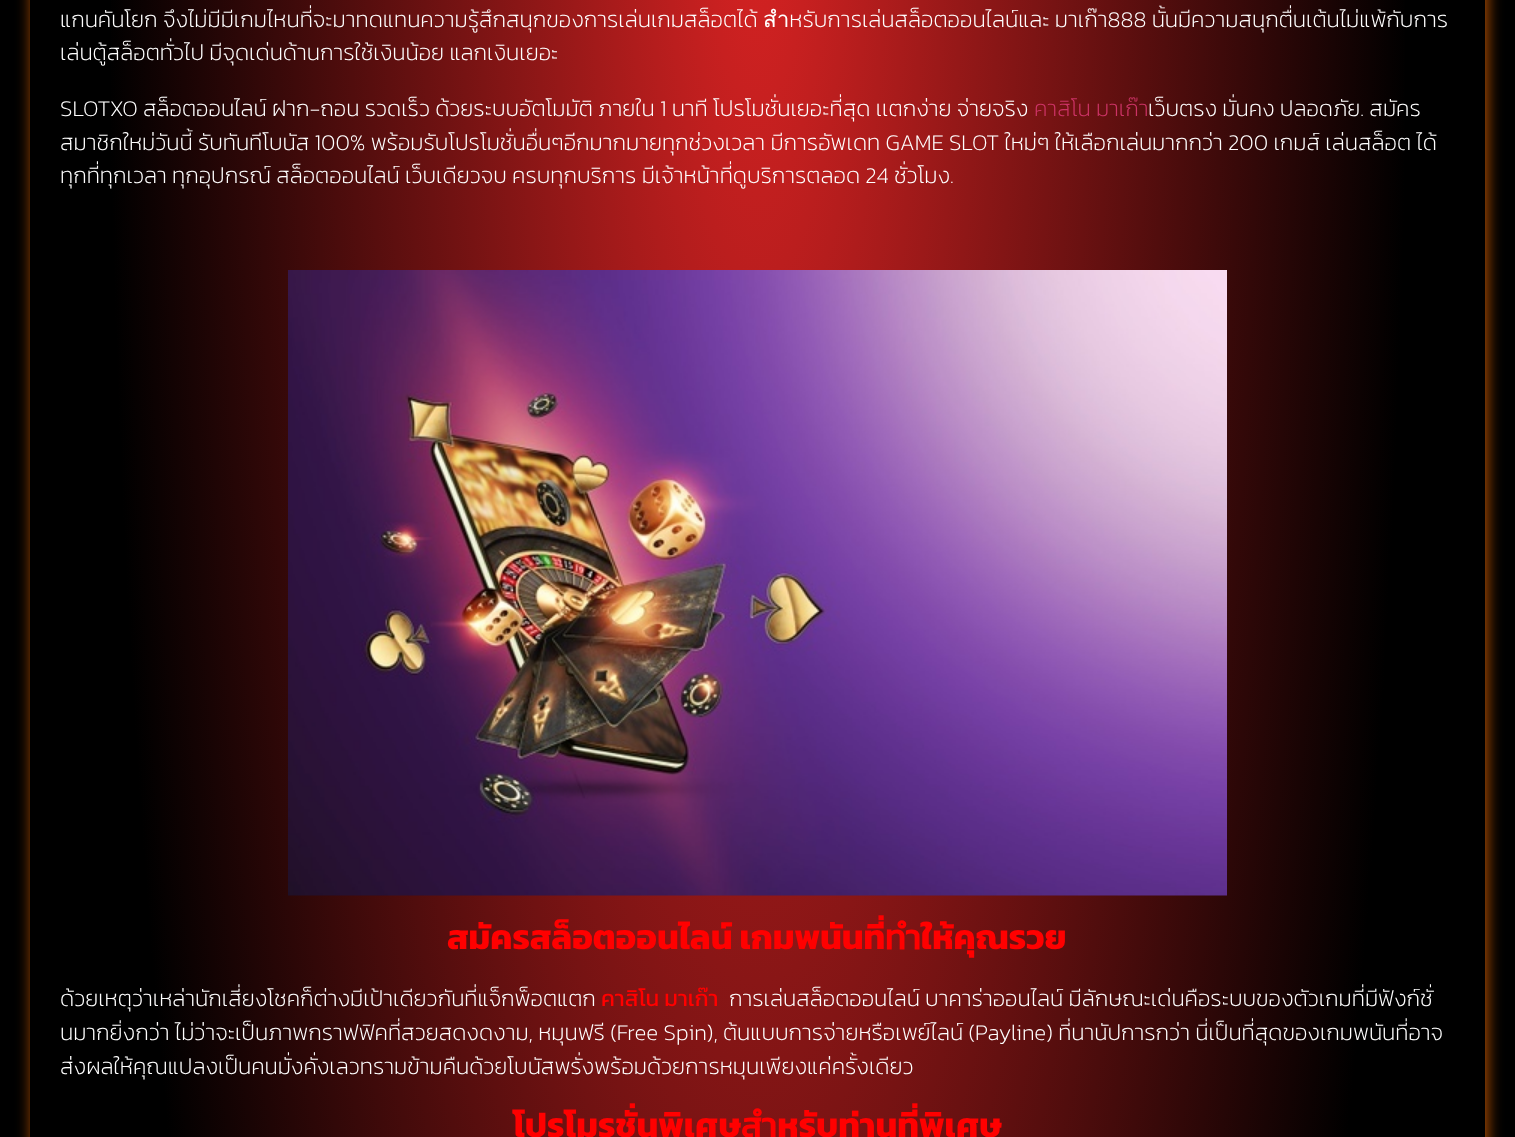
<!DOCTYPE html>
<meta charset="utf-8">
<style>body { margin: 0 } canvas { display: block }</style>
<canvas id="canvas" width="1515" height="1137"></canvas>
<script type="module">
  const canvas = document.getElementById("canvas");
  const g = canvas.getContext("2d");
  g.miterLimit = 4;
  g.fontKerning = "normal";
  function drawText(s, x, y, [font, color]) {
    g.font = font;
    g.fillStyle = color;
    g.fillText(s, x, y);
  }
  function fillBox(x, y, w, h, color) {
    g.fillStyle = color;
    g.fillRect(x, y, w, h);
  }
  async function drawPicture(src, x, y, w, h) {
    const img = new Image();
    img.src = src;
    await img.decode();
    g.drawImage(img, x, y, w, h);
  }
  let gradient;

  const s1 = ["200 22.5px Kanit", "#FFFFFF"];
  const s2 = ["200 22.5px Kanit", "#CC3366"];
  const s3 = ["bold 34.5px Kanit", "#FF0000"];
  const s4 = ["22.5px Kanit", "#FF0000"];

  fillBox(0, 0, 1515, 1137, "#000000");
  gradient = g.createRadialGradient(758, -33.75, 0, 758, -33.75, 1050);
  gradient.addColorStop(0, "#DA2323");
  gradient.addColorStop(0.62, "#000000");
  g.fillStyle = gradient;
  g.beginPath();
  g.rect(111, 0, 1294, 1137);
  g.save();
  g.clip();
  g.scale(1, 4947 / 1050);
  g.fillRect(0, 0, 1515, 242);
  g.restore();
  g.save();
  g.beginPath();
  g.moveTo(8, 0);
  g.lineTo(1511, 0);
  g.lineTo(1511, 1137);
  g.lineTo(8, 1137);
  g.closePath();
  g.moveTo(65, -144);
  g.lineTo(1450, -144);
  g.bezierCurveTo(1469.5, -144, 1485, -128.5, 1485, -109);
  g.lineTo(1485, 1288);
  g.bezierCurveTo(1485, 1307.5, 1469.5, 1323, 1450, 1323);
  g.lineTo(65, 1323);
  g.bezierCurveTo(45.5, 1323, 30, 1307.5, 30, 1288);
  g.lineTo(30, -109);
  g.bezierCurveTo(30, -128.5, 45.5, -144, 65, -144);
  g.closePath();
  g.clip("evenodd");
  g.fillStyle = "rgba(215, 94, 1, 0.88)";
  g.filter = "blur(7.5px)";
  g.beginPath();
  g.roundRect(32, -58, 1455, 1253, 35);
  g.fill();
  g.filter = "none";
  g.restore();
  drawText("แกนคันโยก จึงไม่มีมีเกมไหนที่จะมาทดแทนความรู้สึกสนุกของการเล่นเกมสล็อตได้ สำหรับการเล่นสล็อตออนไลน์และ มาเก๊า888 นั้นมีความสนุกตื่นเต้นไม่แพ้กับการ", 60, 27, s1);
  drawText("เล่นตู้สล็อตทั่วไป มีจุดเด่นด้านการใช้เงินน้อย แลกเงินเยอะ", 60, 60, s1);
  drawText("SLOTXO สล็อตออนไลน์ ฝาก-ถอน รวดเร็ว ด้วยระบบอัตโมมัติ ภายใน 1 นาที โปรโมชั่นเยอะที่สุด เเตกง่าย จ่ายจริง", 60, 116, s1);
  drawText("คาสิโน มาเก๊า", 1034, 116, s2);
  drawText("เว็บตรง มั่นคง ปลอดภัย. สมัคร", 1148, 116, s1);
  drawText("สมาชิกใหม่วันนี้ รับทันทีโบนัส 100% พร้อมรับโปรโมชั่นอื่นๆอีกมากมายทุกช่วงเวลา มีการอัพเดท GAME SLOT ใหม่ๆ ให้เลือกเล่นมากกว่า 200 เกมส์ เล่นสล็อต ได้", 60, 150, s1);
  drawText("ทุกที่ทุกเวลา ทุกอุปกรณ์ สล็อตออนไลน์ เว็บเดียวจบ ครบทุกบริการ มีเจ้าหน้าที่ดูบริการตลอด 24 ชั่วโมง.", 60, 183, s1);
  await drawPicture("pic1.png", 288, 270, 939, 626);
  drawText("สมัครสล็อตออนไลน์ เกมพนันที่ทำให้คุณรวย", 447, 949, s3);
  drawText("ด้วยเหตุว่าเหล่านักเสี่ยงโชคก็ต่างมีเป้าเดียวกันที่แจ็กพ็อตแตก", 60, 1006, s1);
  drawText("คาสิโน มาเก๊า", 601, 1006, s4);
  drawText("การเล่นสล็อตออนไลน์ บาคาร่าออนไลน์ มีลักษณะเด่นคือระบบของตัวเกมที่มีฟังก์ชั่", 729, 1006, s1);
  drawText("นมากยิ่งกว่า ไม่ว่าจะเป็นภาพกราฟฟิคที่สวยสดงดงาม, หมุนฟรี (Free Spin), ต้นแบบการจ่ายหรือเพย์ไลน์ (Payline) ที่นานัปการกว่า นี่เป็นที่สุดของเกมพนันที่อาจ", 60, 1040, s1);
  drawText("ส่งผลให้คุณแปลงเป็นคนมั่งคั่งเลวทรามข้ามคืนด้วยโบนัสพรั่งพร้อมด้วยการหมุนเพียงแค่ครั้งเดียว", 60, 1074, s1);
  drawText("โปรโมรชั่นพิเศษสำหรับท่านที่พิเศษ", 513, 1137, s3);
</script>
